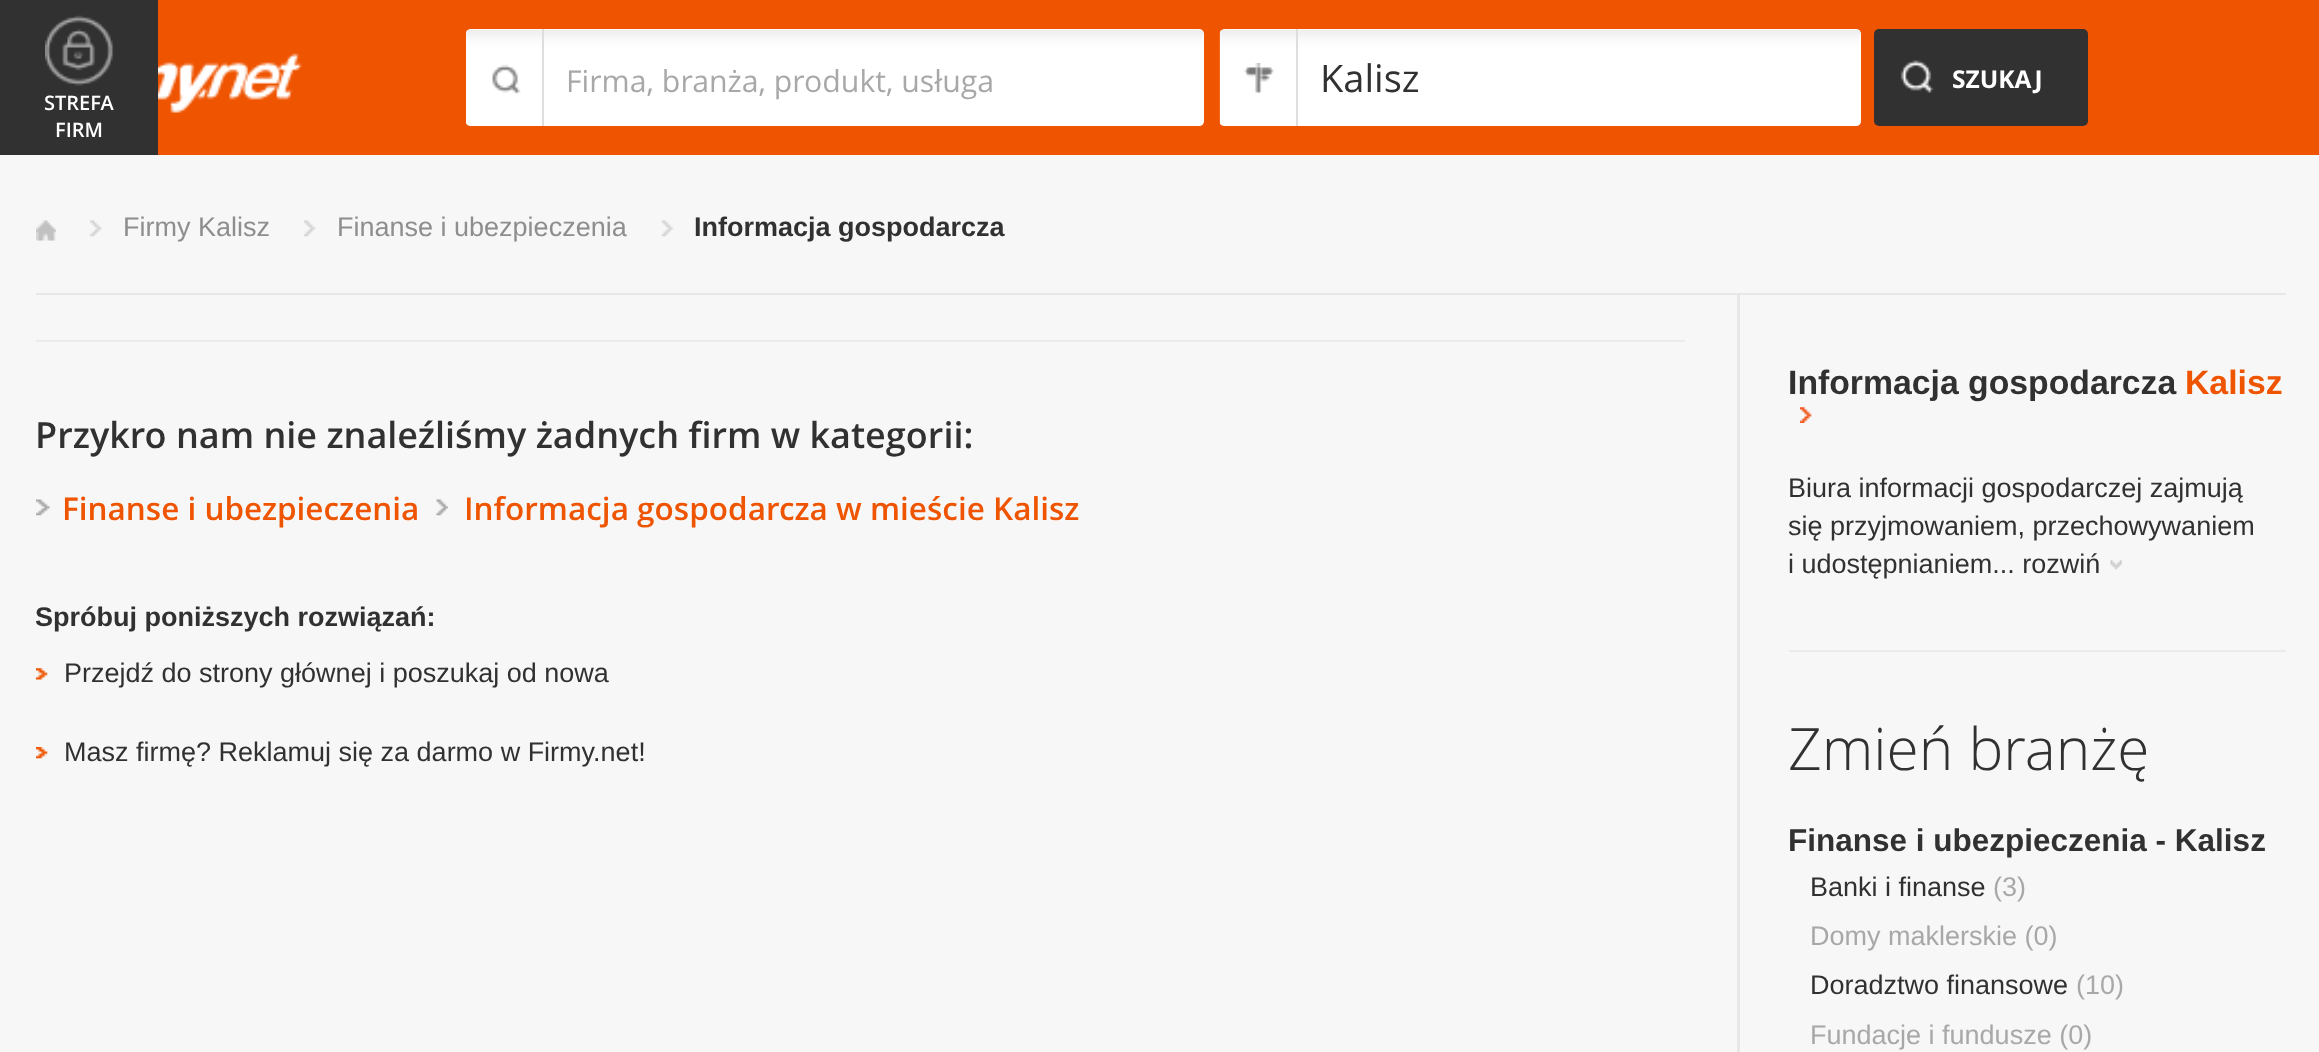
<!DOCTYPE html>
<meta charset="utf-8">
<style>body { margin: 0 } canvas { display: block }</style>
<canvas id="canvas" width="2319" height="1052"></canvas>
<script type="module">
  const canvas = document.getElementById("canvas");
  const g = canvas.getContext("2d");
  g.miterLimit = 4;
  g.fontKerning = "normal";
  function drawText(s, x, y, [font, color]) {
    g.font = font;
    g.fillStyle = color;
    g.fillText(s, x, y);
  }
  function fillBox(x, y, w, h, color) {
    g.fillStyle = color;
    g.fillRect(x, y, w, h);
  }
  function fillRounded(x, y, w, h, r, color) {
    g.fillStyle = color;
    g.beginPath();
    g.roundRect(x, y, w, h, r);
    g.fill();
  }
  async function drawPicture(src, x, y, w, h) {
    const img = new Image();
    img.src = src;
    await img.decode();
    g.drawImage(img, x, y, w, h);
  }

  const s1 = ["30.25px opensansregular", "#A8A8A8"];
  const s2 = ["38px opensansregular", "#313131"];
  const s3 = ["bold 24.5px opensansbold", "#FFFFFF"];
  const s4 = ["600 20px Open Sans", "#FFFFFF"];
  const s5 = ["27px Liberation Sans", "#8E8E8E"];
  const s6 = ["bold 27px Liberation Sans", "#313131"];
  const s7 = ["600 36px Open Sans", "#313131"];
  const s8 = ["600 31.5px Open Sans", "#EF5400"];
  const s9 = ["27px Liberation Sans", "#313131"];
  const s10 = ["bold 33.75px Liberation Sans", "#313131"];
  const s11 = ["bold 33.75px Liberation Sans", "#EF5400"];
  const s12 = ["300 58.5px Open Sans", "#313131"];
  const s13 = ["bold 31.5px Liberation Sans", "#313131"];
  const s14 = ["27px Liberation Sans", "#A8A8A8"];

  fillBox(0, 0, 2319, 1052, "#F7F7F7");
  fillBox(158, 0, 2161, 155, "#EF5400");
  await drawPicture("pic1.png", 158, 53, 144, 60);
  fillRounded(466, 29, 738, 97, 5, "#FFFFFF");
  await drawPicture("pic3.png", 466, 29, 738, 97);
  await drawPicture("pic2.png", 492, 64, 29, 31);
  fillBox(542, 29, 2, 97, "#DEDEDE");
  drawText("Firma, branża, produkt, usługa", 566, 92, s1);
  fillRounded(1220, 29, 641, 97, 5, "#FFFFFF");
  await drawPicture("pic5.png", 1219, 29, 642, 97);
  await drawPicture("pic4.png", 1244, 63, 30, 30);
  fillBox(1296, 29, 2, 97, "#DEDEDE");
  drawText("Kalisz", 1320, 92, s2);
  fillRounded(1874, 29, 214, 97, 5, "#313131");
  await drawPicture("pic6.png", 1900, 60, 34, 33);
  drawText("SZUKAJ", 1952, 88, s3);
  fillBox(0, 0, 158, 155, "#313131");
  await drawPicture("pic7.png", 45, 15, 69, 71);
  drawText("STREFA", 44, 110, s4);
  drawText("FIRM", 55, 137, s4);
  fillBox(36, 293, 2250, 2, "#E7E7E7");
  await drawPicture("pic8.png", 36, 220, 20, 21);
  await drawPicture("pic9.png", 90, 220, 12, 17);
  drawText("Firmy Kalisz", 123, 236, s5);
  await drawPicture("pic10.png", 304, 220, 12, 17);
  drawText("Finanse i ubezpieczenia", 337, 236, s5);
  await drawPicture("pic11.png", 661, 220, 13, 17);
  drawText("Informacja gospodarcza", 694, 236, s6);
  fillBox(1737, 295, 3, 757, "#E7E7E7");
  fillBox(36, 340, 1649, 2, "#EBEBEB");
  drawText("Przykro nam nie znaleźliśmy żadnych firm w kategorii:", 35, 448, s7);
  await drawPicture("pic12.png", 36, 499, 14, 17);
  drawText("Finanse i ubezpieczenia", 62, 520, s8);
  await drawPicture("pic13.png", 436, 499, 12, 17);
  drawText("Informacja gospodarcza w mieście Kalisz", 464, 520, s8);
  drawText("Spróbuj poniższych rozwiązań:", 35, 626, s6);
  await drawPicture("pic14.png", 36, 668, 12, 12);
  drawText("Przejdź do strony głównej i poszukaj od nowa", 64, 682, s9);
  await drawPicture("pic15.png", 36, 747, 12, 12);
  drawText("Masz firmę? Reklamuj się za darmo w Firmy.net!", 64, 761, s9);
  drawText("Informacja gospodarcza", 1788, 394, s10);
  drawText("Kalisz", 2185, 394, s11);
  await drawPicture("pic16.png", 1800, 407, 12, 16);
  drawText("Biura informacji gospodarczej zajmują", 1788, 497, s9);
  drawText("się przyjmowaniem, przechowywaniem", 1788, 535, s9);
  drawText("i udostępnianiem... rozwiń", 1788, 573, s9);
  await drawPicture("pic17.png", 2110, 560, 12, 10);
  fillBox(1789, 650, 497, 2, "#EBEBEB");
  drawText("Zmień branżę", 1788, 770, s12);
  drawText("Finanse i ubezpieczenia - Kalisz", 1788, 851, s13);
  drawText("Banki i finanse", 1810, 896, s9);
  drawText("(3)", 1993, 896, s14);
  drawText("Domy maklerskie (0)", 1810, 945, s14);
  drawText("Doradztwo finansowe", 1810, 994, s9);
  drawText("(10)", 2076, 994, s14);
  drawText("Fundacje i fundusze (0)", 1810, 1044, s14);
</script>
